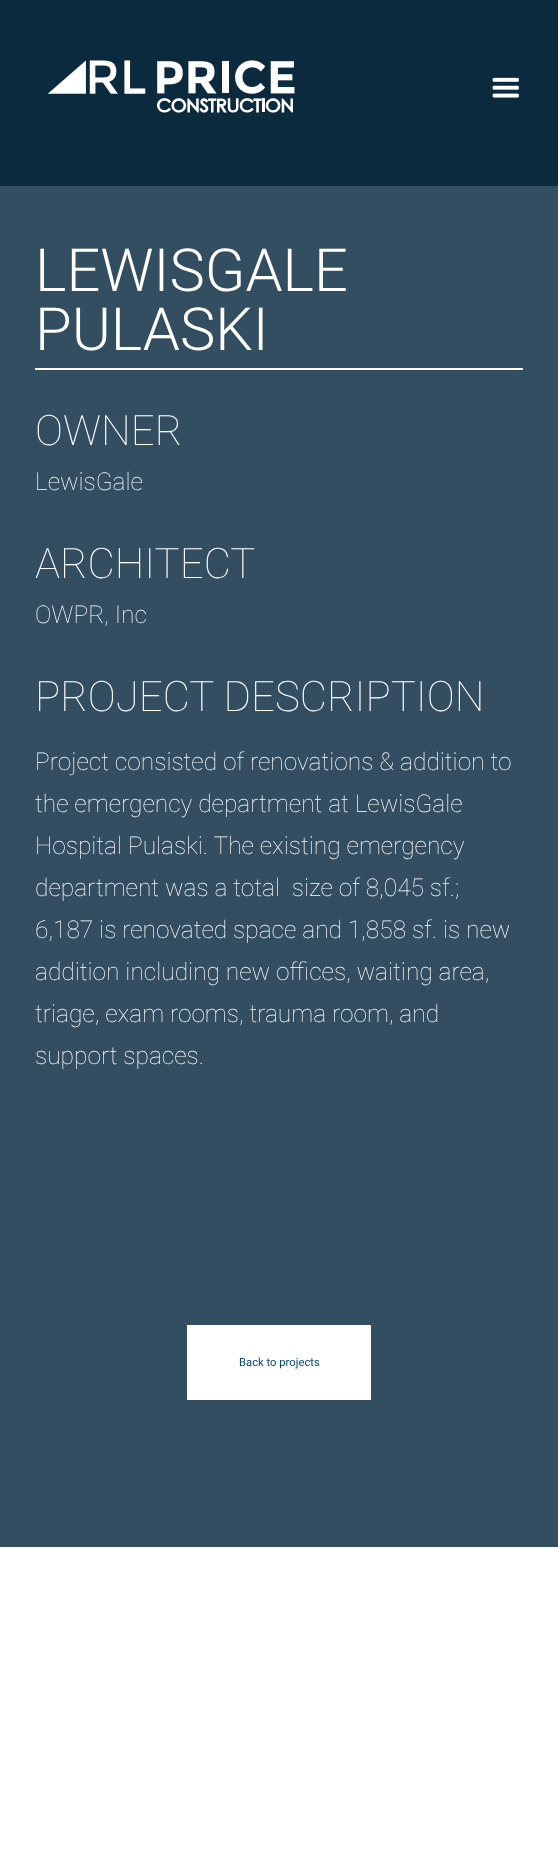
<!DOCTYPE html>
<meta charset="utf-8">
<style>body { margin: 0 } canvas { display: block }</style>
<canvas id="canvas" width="558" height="1849"></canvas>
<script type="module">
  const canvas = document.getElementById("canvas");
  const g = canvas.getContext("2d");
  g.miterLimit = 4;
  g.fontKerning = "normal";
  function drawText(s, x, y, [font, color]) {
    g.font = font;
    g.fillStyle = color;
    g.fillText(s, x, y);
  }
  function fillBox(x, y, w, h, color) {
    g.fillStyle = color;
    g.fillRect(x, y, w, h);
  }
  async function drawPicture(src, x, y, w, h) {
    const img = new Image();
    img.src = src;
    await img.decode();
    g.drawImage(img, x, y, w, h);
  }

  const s1 = ["300 59.5px Roboto", "#FFFFFF"];
  const s2 = ["100 42px Roboto", "#FFFFFF"];
  const s3 = ["100 24.5px Roboto", "#FFFFFF"];
  const s4 = ["11.25px Roboto", "#074772"];

  fillBox(0, 0, 558, 1849, "#FFFFFF");
  fillBox(0, 0, 558, 186, "#0C2A3E");
  await drawPicture("pic1.png", 47, 60, 248, 53);
  await drawPicture("pic2.png", 492, 77, 27, 21);
  fillBox(0, 186, 558, 1361, "#334E60");
  fillBox(35, 368, 488, 2, "#FFFFFF");
  drawText("LEWISGALE", 35, 291, s1);
  drawText("PULASKI", 35, 350, s1);
  drawText("OWNER", 35, 445, s2);
  drawText("LewisGale", 35, 490, s3);
  drawText("ARCHITECT", 35, 578, s2);
  drawText("OWPR, Inc", 35, 623, s3);
  drawText("PROJECT DESCRIPTION", 35, 711, s2);
  drawText("Project consisted of renovations & addition to", 35, 770, s3);
  drawText("the emergency department at LewisGale", 35, 812, s3);
  drawText("Hospital Pulaski. The existing emergency", 35, 854, s3);
  drawText("department was a total  size of 8,045 sf.;", 35, 896, s3);
  drawText("6,187 is renovated space and 1,858 sf. is new", 35, 938, s3);
  drawText("addition including new offices, waiting area,", 35, 980, s3);
  drawText("triage, exam rooms, trauma room, and", 35, 1022, s3);
  drawText("support spaces.", 35, 1064, s3);
  fillBox(187, 1325, 184, 75, "#FFFFFF");
  drawText("Back to projects", 239, 1366, s4);
</script>
